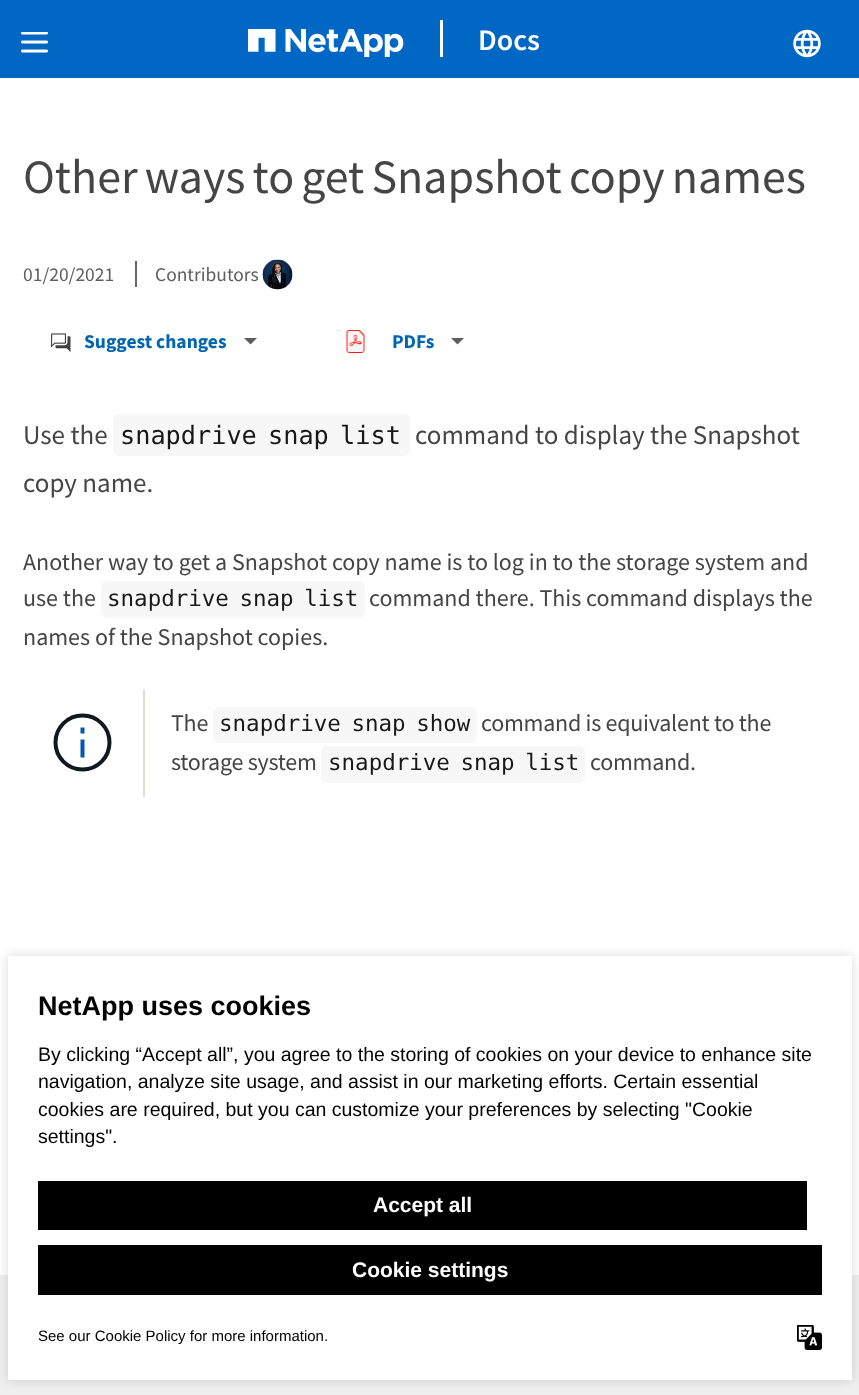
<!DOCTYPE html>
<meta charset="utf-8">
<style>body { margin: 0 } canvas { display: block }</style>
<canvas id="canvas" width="859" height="1395"></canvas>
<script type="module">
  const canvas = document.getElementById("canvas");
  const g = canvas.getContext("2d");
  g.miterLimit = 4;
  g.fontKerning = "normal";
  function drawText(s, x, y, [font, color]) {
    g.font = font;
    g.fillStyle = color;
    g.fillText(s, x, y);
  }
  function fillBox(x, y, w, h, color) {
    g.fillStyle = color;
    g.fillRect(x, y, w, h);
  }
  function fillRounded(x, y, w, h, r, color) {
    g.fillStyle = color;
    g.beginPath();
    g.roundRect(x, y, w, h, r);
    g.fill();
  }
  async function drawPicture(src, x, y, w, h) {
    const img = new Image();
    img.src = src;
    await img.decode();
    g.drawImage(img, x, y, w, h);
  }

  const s1 = ["600 30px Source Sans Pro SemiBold", "#FFFFFF"];
  const s2 = ["48px Source Sans Pro", "#454545"];
  const s3 = ["19.5px Source Sans Pro", "#5E5E5E"];
  const s4 = ["bold 19.5px Source Sans Pro", "#0065B3"];
  const s5 = ["27px Source Sans Pro", "#454545"];
  const s6 = ["25.25px DejaVu Sans Mono", "#191919"];
  const s7 = ["24px Source Sans Pro", "#454545"];
  const s8 = ["22.5px DejaVu Sans Mono", "#191919"];
  const s9 = ["bold 27px Liberation Sans", "#000000"];
  const s10 = ["19.5px Liberation Sans", "#000000"];
  const s11 = ["bold 21px Liberation Sans", "#FFFFFF"];
  const s12 = ["15px Liberation Sans", "#000000"];

  fillBox(0, 0, 859, 1395, "#FFFFFF");
  fillBox(0, 0, 859, 78, "#0067C5");
  await drawPicture("pic1.png", 21, 32, 27, 21);
  await drawPicture("pic2.png", 248, 29, 156, 28);
  fillBox(440, 20, 3, 37, "#FFFFFF");
  drawText("Docs", 478, 50, s1);
  await drawPicture("pic3.png", 793, 29, 28, 29);
  g.wordSpacing = "-2.5px";
  drawText("Other ways to get Snapshot copy names", 23, 193, s2);
  g.wordSpacing = "0px";
  drawText("01/20/2021", 23, 281, s3);
  fillBox(135, 261, 2, 26, "#686868");
  drawText("Contributors", 155, 281, s3);
  await drawPicture("pic4.png", 262, 259, 31, 31);
  await drawPicture("pic5.png", 51, 333, 20, 20);
  drawText("Suggest changes", 84, 348, s4);
  g.fillStyle = "#5E5E5E";
  g.beginPath();
  g.moveTo(250.5, 344.5);
  g.lineTo(244, 338);
  g.lineTo(257, 338);
  g.closePath();
  g.fill();
  await drawPicture("pic6.png", 346, 330, 19, 23);
  drawText("PDFs", 392, 348, s4);
  g.fillStyle = "#5E5E5E";
  g.beginPath();
  g.moveTo(457.5, 344.5);
  g.lineTo(451, 338);
  g.lineTo(464, 338);
  g.closePath();
  g.fill();
  drawText("Use the", 23, 444, s5);
  fillRounded(113, 414, 297, 42, 6, "#F7F7F8");
  g.wordSpacing = "-4px";
  drawText("snapdrive snap list", 120, 444, s6);
  g.wordSpacing = "0px";
  drawText("command to display the Snapshot", 415, 444, s5);
  drawText("copy name.", 23, 492, s5);
  drawText("Another way to get a Snapshot copy name is to log in to the storage system and", 23, 570, s7);
  drawText("use the", 23, 606, s7);
  fillRounded(101, 581, 264, 37, 6, "#F7F7F8");
  g.wordSpacing = "-3px";
  drawText("snapdrive snap list", 107, 606, s8);
  g.wordSpacing = "0px";
  drawText("command there. This command displays the", 369, 606, s7);
  drawText("names of the Snapshot copies.", 23, 645, s7);
  g.beginPath();
  g.arc(82.5, 742.5, 27, 0, Math.PI * 2);
  g.strokeStyle = "#101820";
  g.lineWidth = 4;
  g.stroke();
  g.beginPath();
  g.moveTo(82.5, 757.5);
  g.lineTo(82.5, 739.5);
  g.moveTo(82.5, 733.5);
  g.lineTo(82.5, 727.5);
  g.strokeStyle = "#0057B7";
  g.stroke();
  fillBox(143, 690, 2, 107, "#DDDDD8");
  g.letterSpacing = "-0.25px";
  drawText("The", 171, 731, s7);
  fillRounded(213, 707, 264, 36, 6, "#F7F7F8");
  g.letterSpacing = "0px";
  g.wordSpacing = "-3px";
  drawText("snapdrive snap show", 219, 731, s8);
  g.letterSpacing = "-0.25px";
  g.wordSpacing = "0px";
  drawText("command is equivalent to the", 481, 731, s7);
  drawText("storage system", 171, 770, s7);
  fillRounded(321, 746, 264, 37, 6, "#F7F7F8");
  g.letterSpacing = "0px";
  g.wordSpacing = "-3px";
  drawText("snapdrive snap list", 328, 770, s8);
  g.letterSpacing = "-0.25px";
  g.wordSpacing = "0px";
  drawText("command.", 590, 770, s7);
  fillBox(0, 1275, 859, 120, "#EFEFEF");
  g.fillStyle = "rgba(0, 0, 0, 0.15)";
  g.filter = "blur(6px)";
  g.beginPath();
  g.rect(8, 956, 844, 424);
  g.fill();
  g.filter = "none";
  fillBox(8, 956, 844, 424, "#FFFFFF");
  g.letterSpacing = "0px";
  drawText("NetApp uses cookies", 38, 1015, s9);
  drawText("By clicking “Accept all”, you agree to the storing of cookies on your device to enhance site", 38, 1061, s10);
  drawText("navigation, analyze site usage, and assist in our marketing efforts. Certain essential", 38, 1088, s10);
  drawText("cookies are required, but you can customize your preferences by selecting \"Cookie", 38, 1116, s10);
  drawText("settings\".", 38, 1143, s10);
  fillBox(38, 1181, 769, 49, "#000000");
  drawText("Accept all", 373, 1212, s11);
  fillBox(38, 1245, 784, 50, "#000000");
  drawText("Cookie settings", 352, 1277, s11);
  drawText("See our Cookie Policy for more information.", 38, 1341, s12);
  await drawPicture("pic7.png", 797, 1325, 25, 25);
</script>
